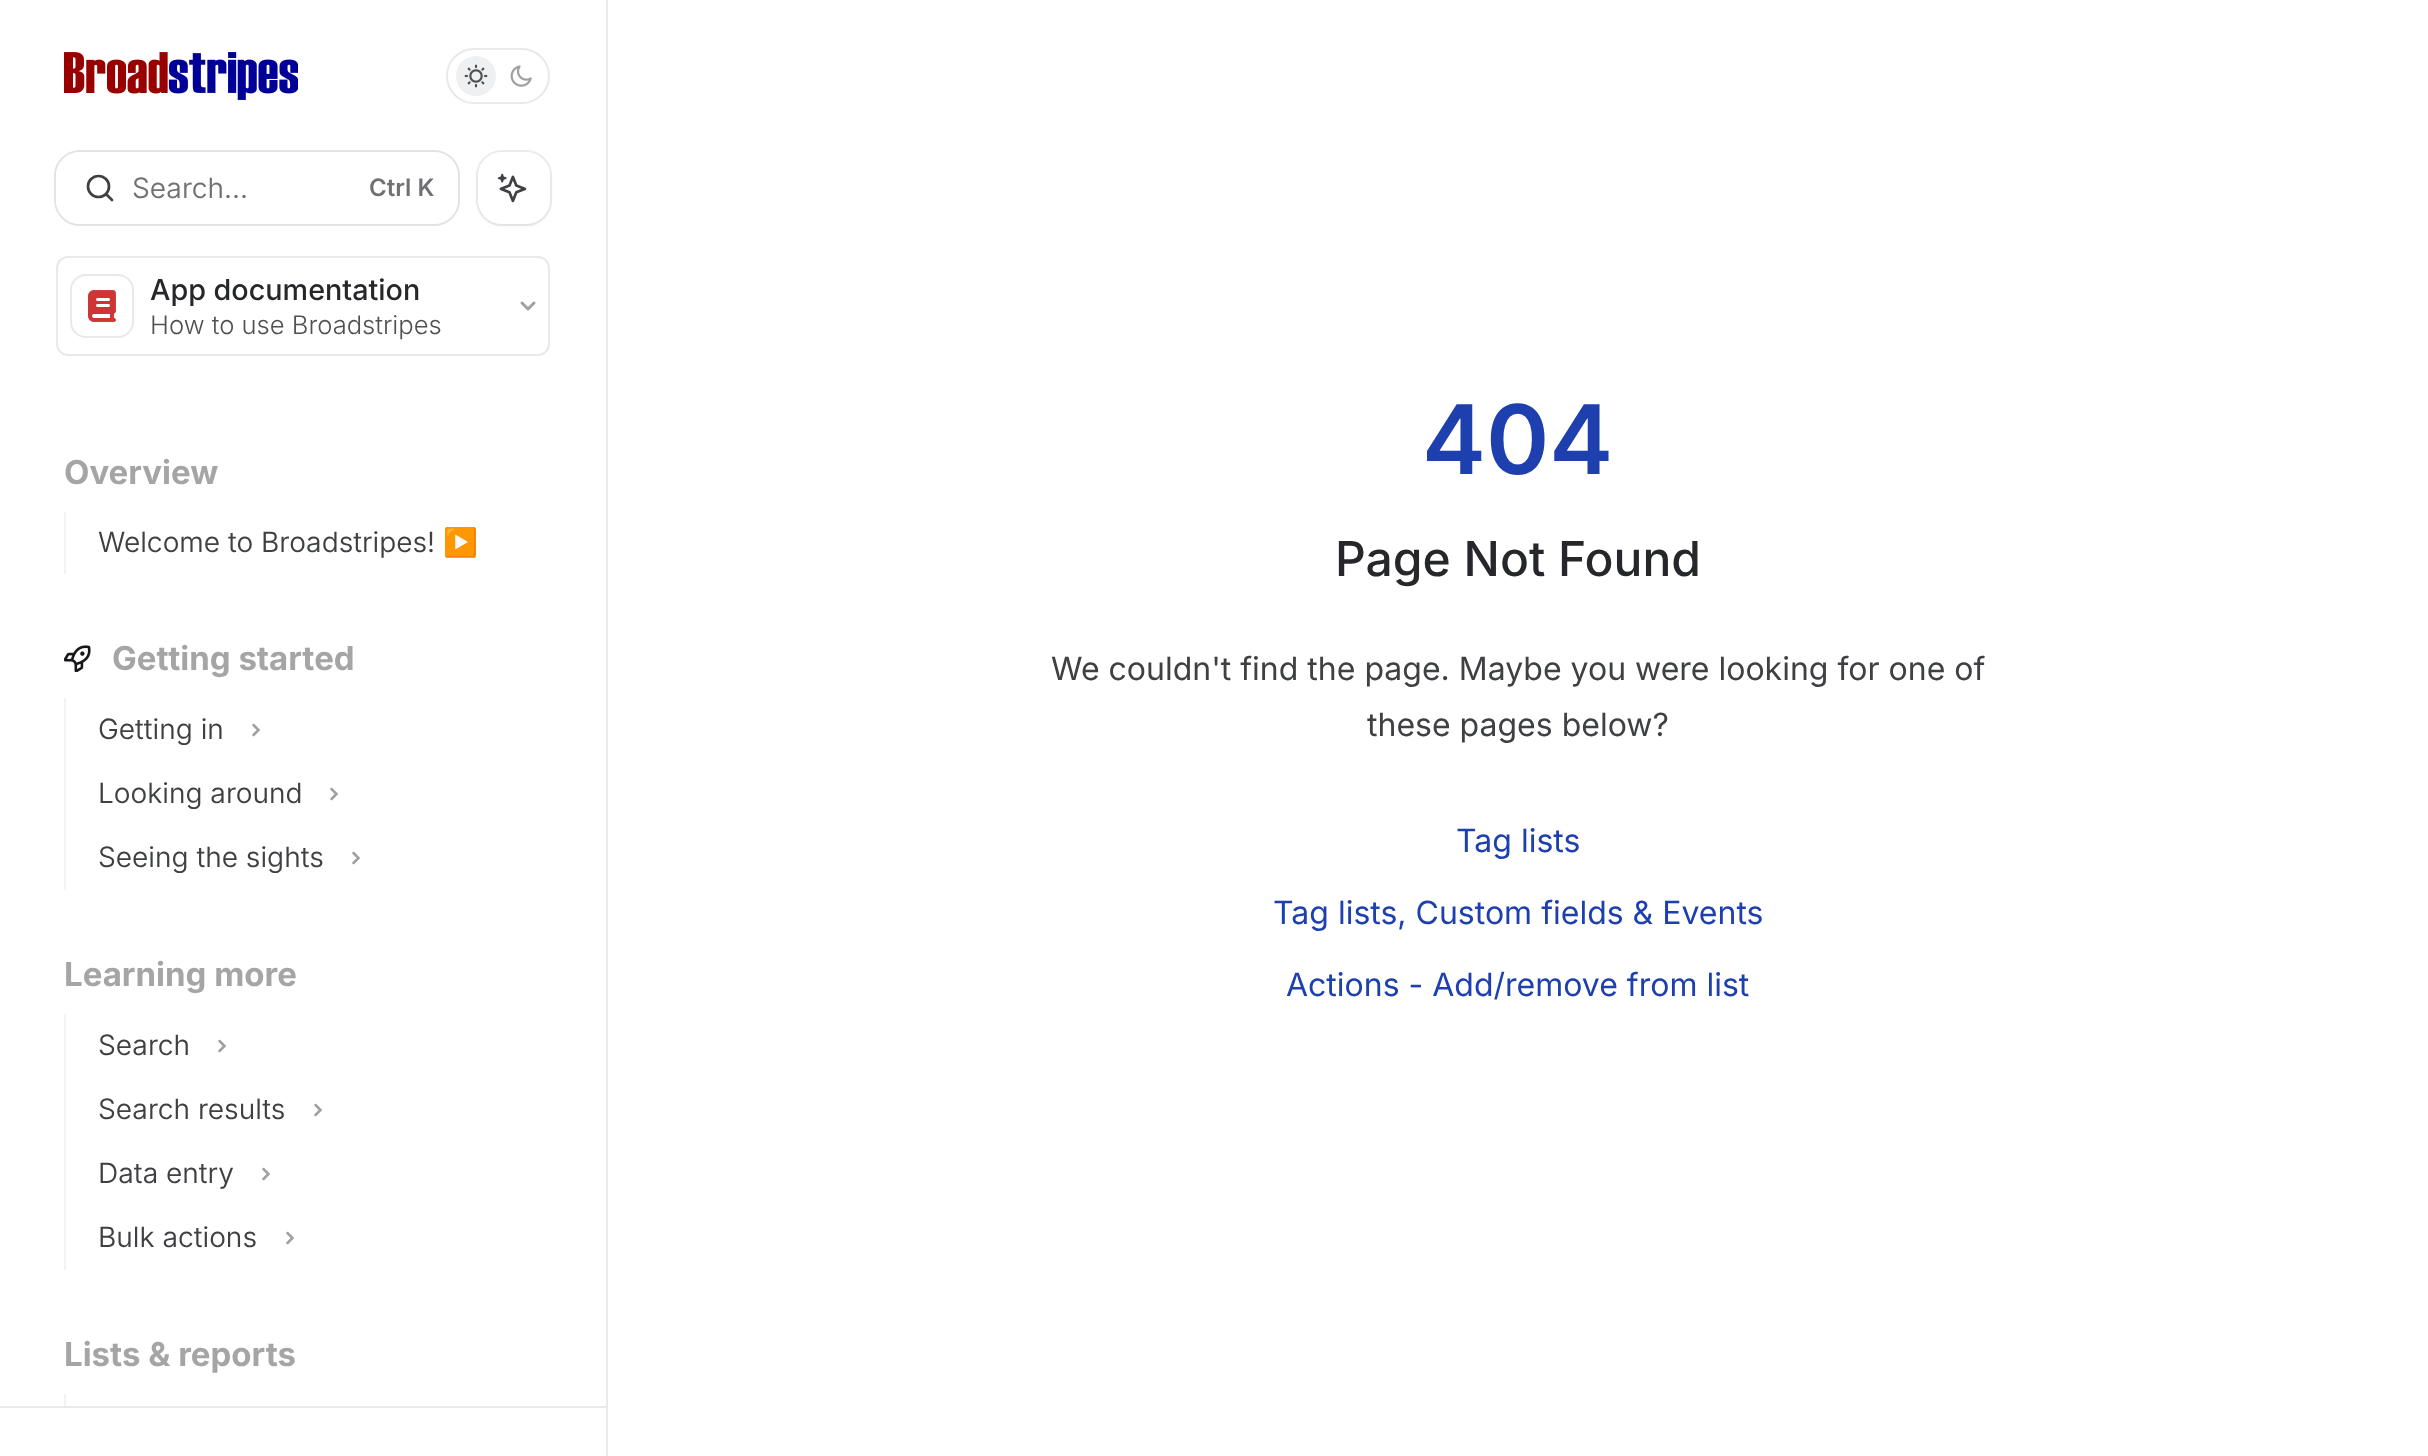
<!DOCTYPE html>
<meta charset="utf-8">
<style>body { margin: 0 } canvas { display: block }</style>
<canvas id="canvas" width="2428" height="1456"></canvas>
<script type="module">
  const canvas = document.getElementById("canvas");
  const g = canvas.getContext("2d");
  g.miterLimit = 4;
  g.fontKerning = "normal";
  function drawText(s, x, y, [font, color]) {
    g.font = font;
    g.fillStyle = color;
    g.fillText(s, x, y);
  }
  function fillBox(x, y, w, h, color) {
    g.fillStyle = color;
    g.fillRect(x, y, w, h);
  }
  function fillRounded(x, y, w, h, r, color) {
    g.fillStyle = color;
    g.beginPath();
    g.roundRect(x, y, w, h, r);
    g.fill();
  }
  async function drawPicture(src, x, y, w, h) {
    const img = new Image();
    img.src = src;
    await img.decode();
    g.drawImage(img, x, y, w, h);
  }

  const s1 = ["300 28px Inter", "#707175"];
  const s2 = ["600 24px Inter", "#707175"];
  const s3 = ["500 28.75px Inter", "#26272A"];
  const s4 = ["300 25.6px 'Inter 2'", "#505155"];
  const s5 = ["bold 33px Inter", "#A5A5A5"];
  const s6 = ["300 28px Inter", "#3F4043"];
  const s7 = ["28px Noto Color Emoji", "#3F4043"];
  const s8 = ["600 96px Inter", "#1E40AF"];
  const s9 = ["500 48px Inter", "#26272A"];
  const s10 = ["32px Inter", "#3F4043"];
  const s11 = ["32px Inter", "#1E40AF"];

  fillBox(0, 0, 2428, 1456, "#FFFFFF");
  fillBox(606, 0, 2, 1456, "#E9E9EB");
  await drawPicture("pic1.png", 64, 52, 234, 48);
  g.beginPath();
  g.roundRect(447, 49, 102, 54, 27);
  g.strokeStyle = "#E9E9EB";
  g.lineWidth = 2;
  g.stroke();
  g.fillStyle = "#EFF0F1";
  g.beginPath();
  g.arc(476, 76, 20, 0, Math.PI * 2);
  g.fill();
  await drawPicture("pic2.png", 464, 64, 24, 24);
  await drawPicture("pic3.png", 510, 65, 22, 22);
  g.beginPath();
  g.roundRect(55, 151, 404, 74, 25);
  g.strokeStyle = "#E2E3E3";
  g.stroke();
  fillRounded(56, 152, 402, 72, 24, "#FFFFFF");
  g.beginPath();
  g.arc(98.5, 186.5, 10.5, 0, Math.PI * 2);
  g.strokeStyle = "#3F4043";
  g.lineWidth = 2.7;
  g.stroke();
  g.beginPath();
  g.moveTo(112, 200);
  g.lineTo(106.5, 194.5);
  g.lineCap = "round";
  g.lineJoin = "round";
  g.stroke();
  drawText("Search...", 132, 198, s1);
  drawText("Ctrl K", 369, 196, s2);
  g.fillStyle = "rgba(0, 0, 0, 0.05)";
  g.filter = "blur(2px)";
  g.beginPath();
  g.roundRect(478, 154, 72, 72, 24);
  g.fill();
  g.filter = "none";
  g.beginPath();
  g.roundRect(477, 151, 74, 74, 25);
  g.strokeStyle = "rgba(159, 160, 163, 0.2)";
  g.lineWidth = 2;
  g.lineJoin = "miter";
  g.stroke();
  fillRounded(478, 152, 72, 72, 24, "#FFFFFF");
  await drawPicture("pic4.png", 497, 173, 30, 30);
  g.beginPath();
  g.roundRect(57, 257, 492, 98, 11);
  g.strokeStyle = "#E9E9EB";
  g.stroke();
  g.beginPath();
  g.roundRect(71, 275, 62, 62, 15);
  g.stroke();
  await drawPicture("pic5.png", 88, 290, 28, 32);
  drawText("App documentation", 150, 300, s3);
  drawText("How to use Broadstripes", 150, 334, s4);
  g.beginPath();
  g.moveTo(534, 303);
  g.lineTo(528, 309);
  g.lineTo(522, 303);
  g.strokeStyle = "#9FA0A3";
  g.lineWidth = 3;
  g.stroke();
  drawText("Overview", 64, 484, s5);
  fillBox(64, 512, 2, 62, "#F3F3F3");
  drawText("Welcome to Broadstripes!", 98, 552, s6);
  drawText("▶️", 443, 552, s7);
  await drawPicture("pic6.png", 64, 645, 27, 27);
  drawText("Getting started", 112, 670, s5);
  fillBox(64, 698, 2, 192, "#F3F3F3");
  drawText("Getting in", 98, 739, s6);
  g.beginPath();
  g.moveTo(253.5, 725);
  g.lineTo(258.5, 730);
  g.lineTo(253.5, 735);
  g.lineWidth = 2.5;
  g.stroke();
  drawText("Looking around", 98, 803, s6);
  g.beginPath();
  g.moveTo(331.5, 789);
  g.lineTo(336.5, 794);
  g.lineTo(331.5, 799);
  g.stroke();
  drawText("Seeing the sights", 98, 867, s6);
  g.beginPath();
  g.moveTo(353.5, 853);
  g.lineTo(358.5, 858);
  g.lineTo(353.5, 863);
  g.stroke();
  drawText("Learning more", 64, 986, s5);
  fillBox(64, 1014, 2, 256, "#F3F3F3");
  drawText("Search", 98, 1055, s6);
  g.beginPath();
  g.moveTo(219.5, 1041);
  g.lineTo(224.5, 1046);
  g.lineTo(219.5, 1051);
  g.stroke();
  drawText("Search results", 98, 1119, s6);
  g.beginPath();
  g.moveTo(315.5, 1105);
  g.lineTo(320.5, 1110);
  g.lineTo(315.5, 1115);
  g.stroke();
  drawText("Data entry", 98, 1183, s6);
  g.beginPath();
  g.moveTo(263.5, 1169);
  g.lineTo(268.5, 1174);
  g.lineTo(263.5, 1179);
  g.stroke();
  drawText("Bulk actions", 98, 1247, s6);
  g.beginPath();
  g.moveTo(287.5, 1233);
  g.lineTo(292.5, 1238);
  g.lineTo(287.5, 1243);
  g.stroke();
  drawText("Lists & reports", 64, 1366, s5);
  fillBox(64, 1394, 2, 12, "#F3F3F3");
  fillBox(0, 1406, 606, 2, "#E9E9EB");
  drawText("404", 1422, 474, s8);
  drawText("Page Not Found", 1335, 576, s9);
  drawText("We couldn't find the page. Maybe you were looking for one of", 1051, 680, s10);
  drawText("these pages below?", 1367, 736, s10);
  drawText("Tag lists", 1456, 852, s11);
  drawText("Tag lists, Custom fields & Events", 1273, 924, s11);
  drawText("Actions - Add/remove from list", 1286, 996, s11);
</script>
